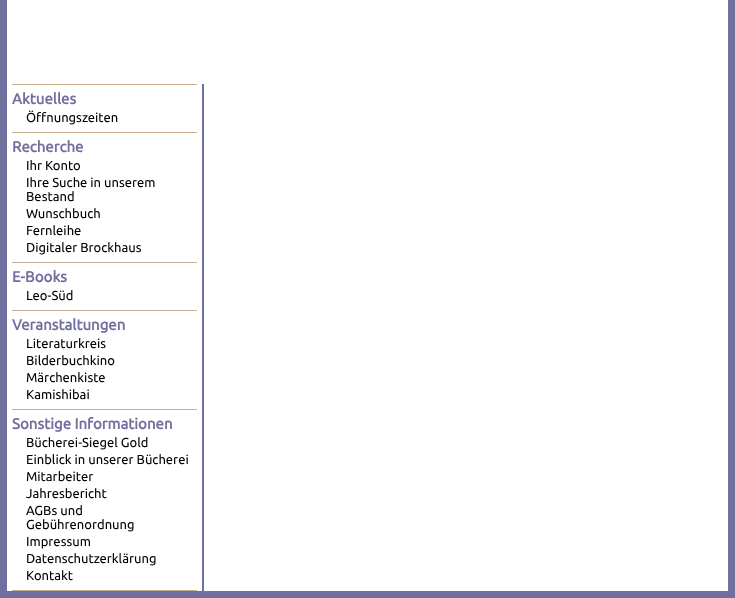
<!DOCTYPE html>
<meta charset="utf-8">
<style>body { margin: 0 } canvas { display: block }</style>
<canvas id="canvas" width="735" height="598"></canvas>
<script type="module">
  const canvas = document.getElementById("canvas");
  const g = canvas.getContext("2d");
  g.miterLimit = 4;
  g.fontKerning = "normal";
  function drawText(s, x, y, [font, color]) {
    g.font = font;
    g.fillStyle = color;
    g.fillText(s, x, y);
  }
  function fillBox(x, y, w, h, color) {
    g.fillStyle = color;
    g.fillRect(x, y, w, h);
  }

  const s1 = ["bold 15px Ubuntu", "#716F9E"];
  const s2 = ["13px Ubuntu", "#000000"];

  fillBox(0, 0, 735, 598, "#FFFFFF");
  g.strokeStyle = "#716F9E";
  g.lineWidth = 7;
  g.strokeRect(3.5, -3.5, 728, 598);
  fillBox(202, 84, 2, 507, "#716F9E");
  fillBox(12, 590, 185, 1, "#C6AD8D");
  fillBox(12, 84, 185, 1, "#C6AD8D");
  drawText("Aktuelles", 12, 104, s1);
  drawText("Öffnungszeiten", 26, 122, s2);
  fillBox(12, 132, 185, 1, "#C6AD8D");
  drawText("Recherche", 12, 152, s1);
  drawText("Ihr Konto", 26, 170, s2);
  drawText("Ihre Suche in unserem", 26, 187, s2);
  drawText("Bestand", 26, 201, s2);
  drawText("Wunschbuch", 26, 218, s2);
  drawText("Fernleihe", 26, 235, s2);
  drawText("Digitaler Brockhaus", 26, 252, s2);
  fillBox(12, 262, 185, 1, "#C6AD8D");
  drawText("E-Books", 12, 282, s1);
  drawText("Leo-Süd", 26, 300, s2);
  fillBox(12, 310, 185, 1, "#C6AD8D");
  drawText("Veranstaltungen", 12, 330, s1);
  drawText("Literaturkreis", 26, 348, s2);
  drawText("Bilderbuchkino", 26, 365, s2);
  drawText("Märchenkiste", 26, 382, s2);
  drawText("Kamishibai", 26, 399, s2);
  fillBox(12, 409, 185, 1, "#C6AD8D");
  drawText("Sonstige Informationen", 12, 429, s1);
  drawText("Bücherei-Siegel Gold", 26, 447, s2);
  drawText("Einblick in unserer Bücherei", 26, 464, s2);
  drawText("Mitarbeiter", 26, 481, s2);
  drawText("Jahresbericht", 26, 498, s2);
  drawText("AGBs und", 26, 515, s2);
  drawText("Gebührenordnung", 26, 529, s2);
  drawText("Impressum", 26, 546, s2);
  drawText("Datenschutzerklärung", 26, 563, s2);
  drawText("Kontakt", 26, 580, s2);
</script>
